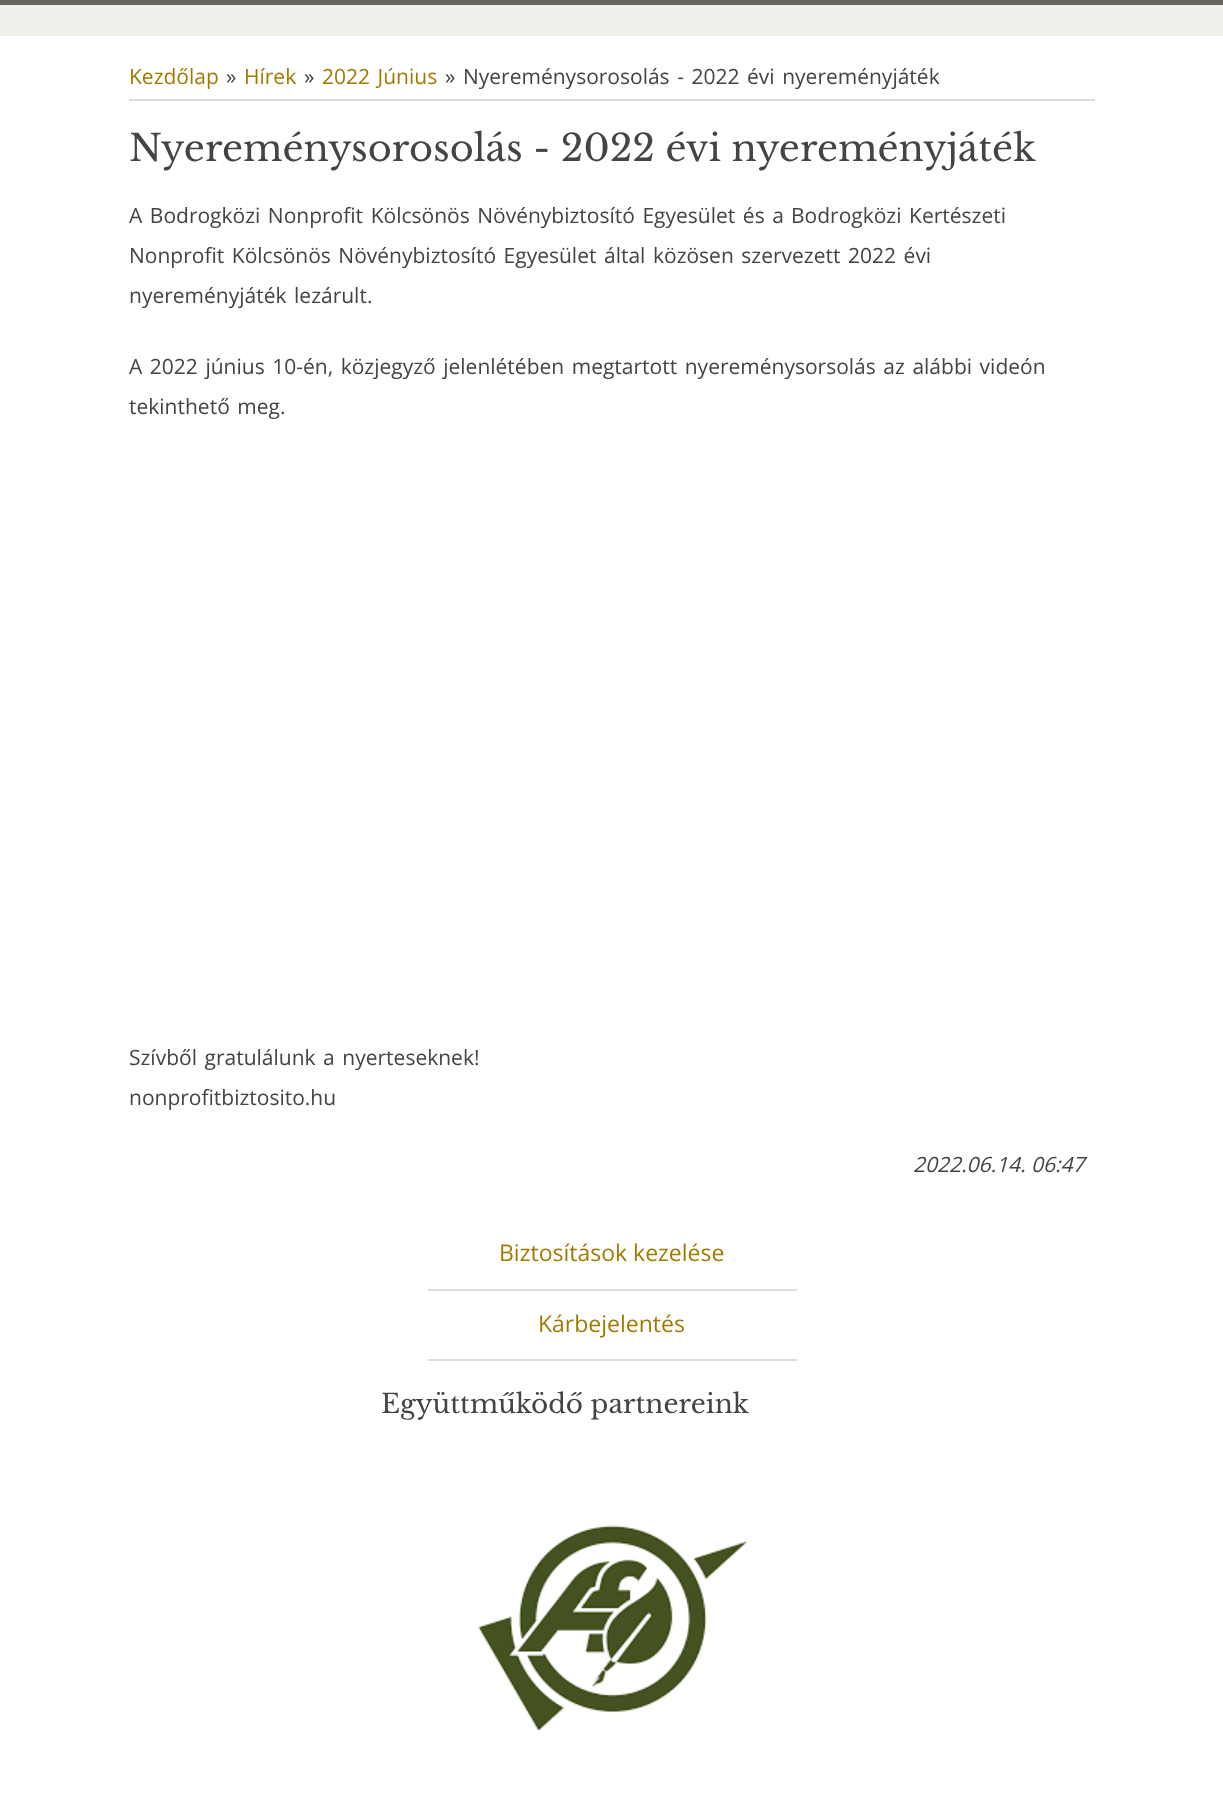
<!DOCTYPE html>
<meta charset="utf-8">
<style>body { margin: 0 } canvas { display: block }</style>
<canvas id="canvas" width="1223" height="1815"></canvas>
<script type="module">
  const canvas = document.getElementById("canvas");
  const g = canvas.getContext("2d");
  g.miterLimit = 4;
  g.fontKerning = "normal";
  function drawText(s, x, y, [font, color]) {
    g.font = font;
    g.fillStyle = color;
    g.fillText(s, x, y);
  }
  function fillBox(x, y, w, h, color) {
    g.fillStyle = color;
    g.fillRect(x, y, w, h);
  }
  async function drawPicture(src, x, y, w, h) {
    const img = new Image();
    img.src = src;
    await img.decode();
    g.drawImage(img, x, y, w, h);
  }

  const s1 = ["21px Open Sans", "#A27A01"];
  const s2 = ["21px Open Sans", "#444444"];
  const s3 = ["36.75px Libre Baskerville", "#444444"];
  const s4 = ["italic 21px Open Sans", "#444444"];
  const s5 = ["23px Open Sans", "#A27A01"];
  const s6 = ["26.25px Libre Baskerville", "#444444"];

  fillBox(0, 0, 1223, 1815, "#FFFFFF");
  fillBox(0, 5, 1223, 31, "#F1EFE9");
  fillBox(0, 0, 1223, 5, "#68655D");
  fillBox(129, 99, 966, 2, "#DDDDDD");
  drawText("Kezdőlap", 129, 84, s1);
  drawText("»", 226, 84, s2);
  drawText("Hírek", 244, 84, s1);
  drawText("»", 304, 84, s2);
  g.wordSpacing = "2.1px";
  drawText("2022 Június", 322, 84, s1);
  g.wordSpacing = "0px";
  drawText("»", 445, 84, s2);
  g.wordSpacing = "2.1px";
  drawText("Nyereménysorosolás - 2022 évi nyereményjáték", 463, 84, s2);
  g.wordSpacing = "0px";
  drawText("Nyereménysorosolás - 2022 évi nyereményjáték", 129, 161, s3);
  g.wordSpacing = "2.1px";
  drawText("A Bodrogközi Nonprofit Kölcsönös Növénybiztosító Egyesület és a", 129, 223, s2);
  drawText("Bodrogközi Kertészeti", 791, 223, s2);
  drawText("Nonprofit Kölcsönös Növénybiztosító Egyesület által közösen szervezett", 129, 263, s2);
  drawText("2022 évi", 848, 263, s2);
  drawText("nyereményjáték lezárult.", 129, 303, s2);
  drawText("A 2022 június 10-én, közjegyző jelenlétében megtartott nyereménysorsolás az alábbi videón", 129, 374, s2);
  drawText("tekinthető meg.", 129, 414, s2);
  drawText("Szívből gratulálunk a nyerteseknek!", 129, 1065, s2);
  g.wordSpacing = "0px";
  drawText("nonprofitbiztosito.hu", 129, 1105, s2);
  drawText("2022.06.14. 06:47", 913, 1172, s4);
  fillBox(428, 1289, 369, 2, "#DDDDDD");
  drawText("Biztosítások kezelése", 499, 1261, s5);
  fillBox(428, 1359, 369, 2, "#DDDDDD");
  drawText("Kárbejelentés", 538, 1332, s5);
  drawText("Együttműködő partnereink", 381, 1413, s6);
  await drawPicture("pic1.png", 478, 1525, 270, 207);
</script>
